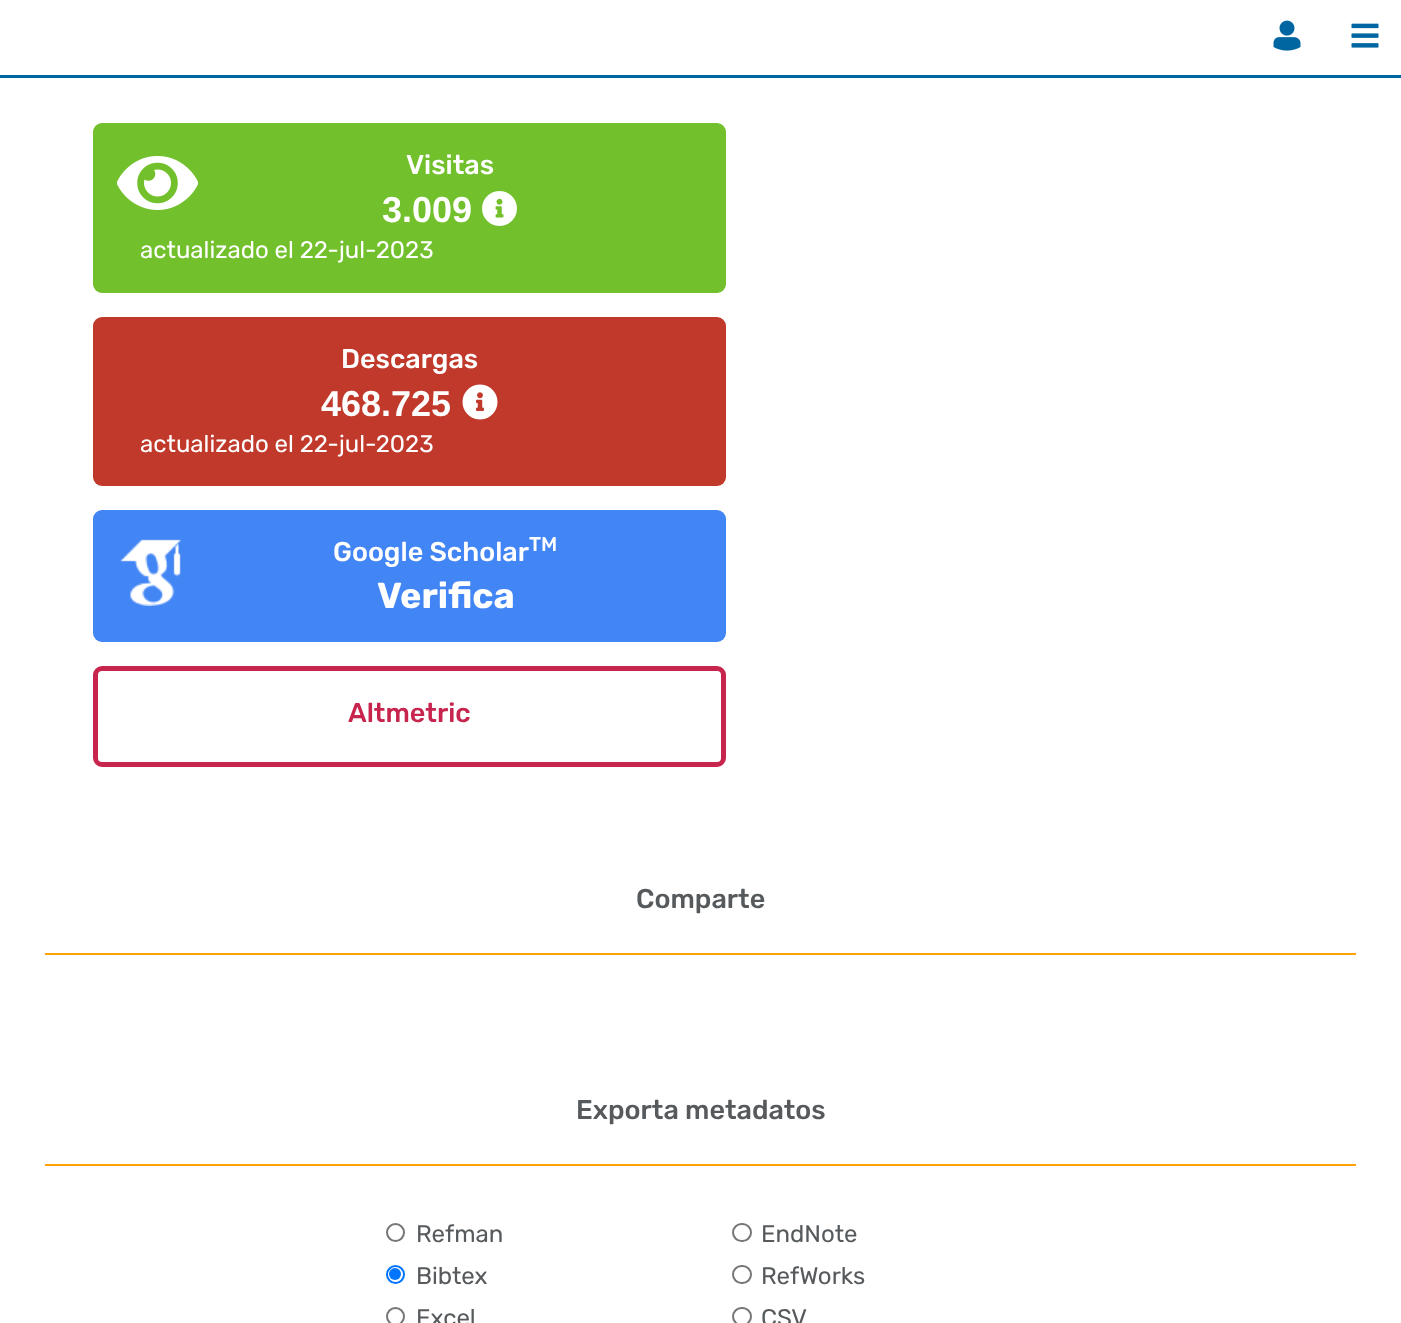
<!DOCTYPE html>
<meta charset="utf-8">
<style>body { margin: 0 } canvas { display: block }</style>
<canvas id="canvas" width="1401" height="1323"></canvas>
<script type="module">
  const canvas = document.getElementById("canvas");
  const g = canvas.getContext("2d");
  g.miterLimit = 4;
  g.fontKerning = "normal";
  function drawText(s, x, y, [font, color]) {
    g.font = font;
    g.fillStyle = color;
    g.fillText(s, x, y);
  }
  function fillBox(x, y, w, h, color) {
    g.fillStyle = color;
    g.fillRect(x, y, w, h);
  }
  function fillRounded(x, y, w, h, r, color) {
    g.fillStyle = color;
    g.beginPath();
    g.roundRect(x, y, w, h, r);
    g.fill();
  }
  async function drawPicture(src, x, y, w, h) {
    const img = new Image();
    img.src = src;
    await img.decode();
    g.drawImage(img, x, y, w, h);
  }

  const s1 = ["500 27px Rubik", "#FFFFFF"];
  const s2 = ["bold 36px Liberation Sans", "#FFFFFF"];
  const s3 = ["24px Rubik", "#FFFFFF"];
  const s4 = ["500 20px Rubik", "#FFFFFF"];
  const s5 = ["bold 36px Rubik", "#FFFFFF"];
  const s6 = ["500 27px Rubik", "#C7254E"];
  const s7 = ["500 27px Rubik", "#565A5C"];
  const s8 = ["24px Rubik", "#565A5C"];

  fillBox(0, 0, 1401, 1323, "#FFFFFF");
  fillBox(0, 75, 1401, 3, "#0066A1");
  await drawPicture("pic1.png", 1273, 20, 28, 31);
  await drawPicture("pic2.png", 1351, 23, 28, 25);
  fillRounded(93, 123, 633, 170, 9, "#72C02C");
  await drawPicture("pic3.png", 117, 156, 81, 54);
  drawText("Visitas", 406, 174, s1);
  drawText("3.009", 382, 222, s2);
  await drawPicture("pic4.png", 482, 191, 35, 35);
  drawText("actualizado el 22-jul-2023", 140, 258, s3);
  fillRounded(93, 317, 633, 169, 9, "#C0392B");
  drawText("Descargas", 341, 368, s1);
  drawText("468.725", 321, 416, s2);
  await drawPicture("pic5.png", 462, 384, 36, 36);
  drawText("actualizado el 22-jul-2023", 140, 452, s3);
  fillRounded(93, 510, 633, 132, 9, "#4285F4");
  await drawPicture("pic6.png", 120, 539, 62, 67);
  drawText("Google Scholar", 333, 561, s1);
  drawText("TM", 529, 551, s4);
  drawText("Verifica", 377, 608, s5);
  g.beginPath();
  g.roundRect(95.5, 668.5, 628, 96, 6.5);
  g.strokeStyle = "#C7254E";
  g.lineWidth = 5;
  g.stroke();
  drawText("Altmetric", 348, 722, s6);
  drawText("Comparte", 636, 908, s7);
  fillBox(45, 953, 1311, 2, "#FFA100");
  drawText("Exporta metadatos", 576, 1119, s7);
  fillBox(45, 1164, 1311, 2, "#FFA100");
  g.beginPath();
  g.arc(395.5, 1232.5, 8.5, 0, Math.PI * 2);
  g.strokeStyle = "#767676";
  g.lineWidth = 2;
  g.stroke();
  drawText("Refman", 416, 1242, s8);
  g.beginPath();
  g.roundRect(733, 1224, 18, 17, 8.5);
  g.stroke();
  drawText("EndNote", 761, 1242, s8);
  g.beginPath();
  g.arc(395.5, 1274.5, 8.5, 0, Math.PI * 2);
  g.strokeStyle = "#0075FF";
  g.stroke();
  g.fillStyle = "#0075FF";
  g.beginPath();
  g.arc(395, 1274, 6, 0, Math.PI * 2);
  g.fill();
  drawText("Bibtex", 416, 1284, s8);
  g.beginPath();
  g.roundRect(733, 1266, 18, 17, 8.5);
  g.strokeStyle = "#767676";
  g.stroke();
  drawText("RefWorks", 761, 1284, s8);
  g.beginPath();
  g.arc(395.5, 1316.5, 8.5, 0, Math.PI * 2);
  g.stroke();
  drawText("Excel", 416, 1326, s8);
  g.beginPath();
  g.roundRect(733, 1308, 18, 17, 8.5);
  g.stroke();
  drawText("CSV", 761, 1326, s8);
</script>
